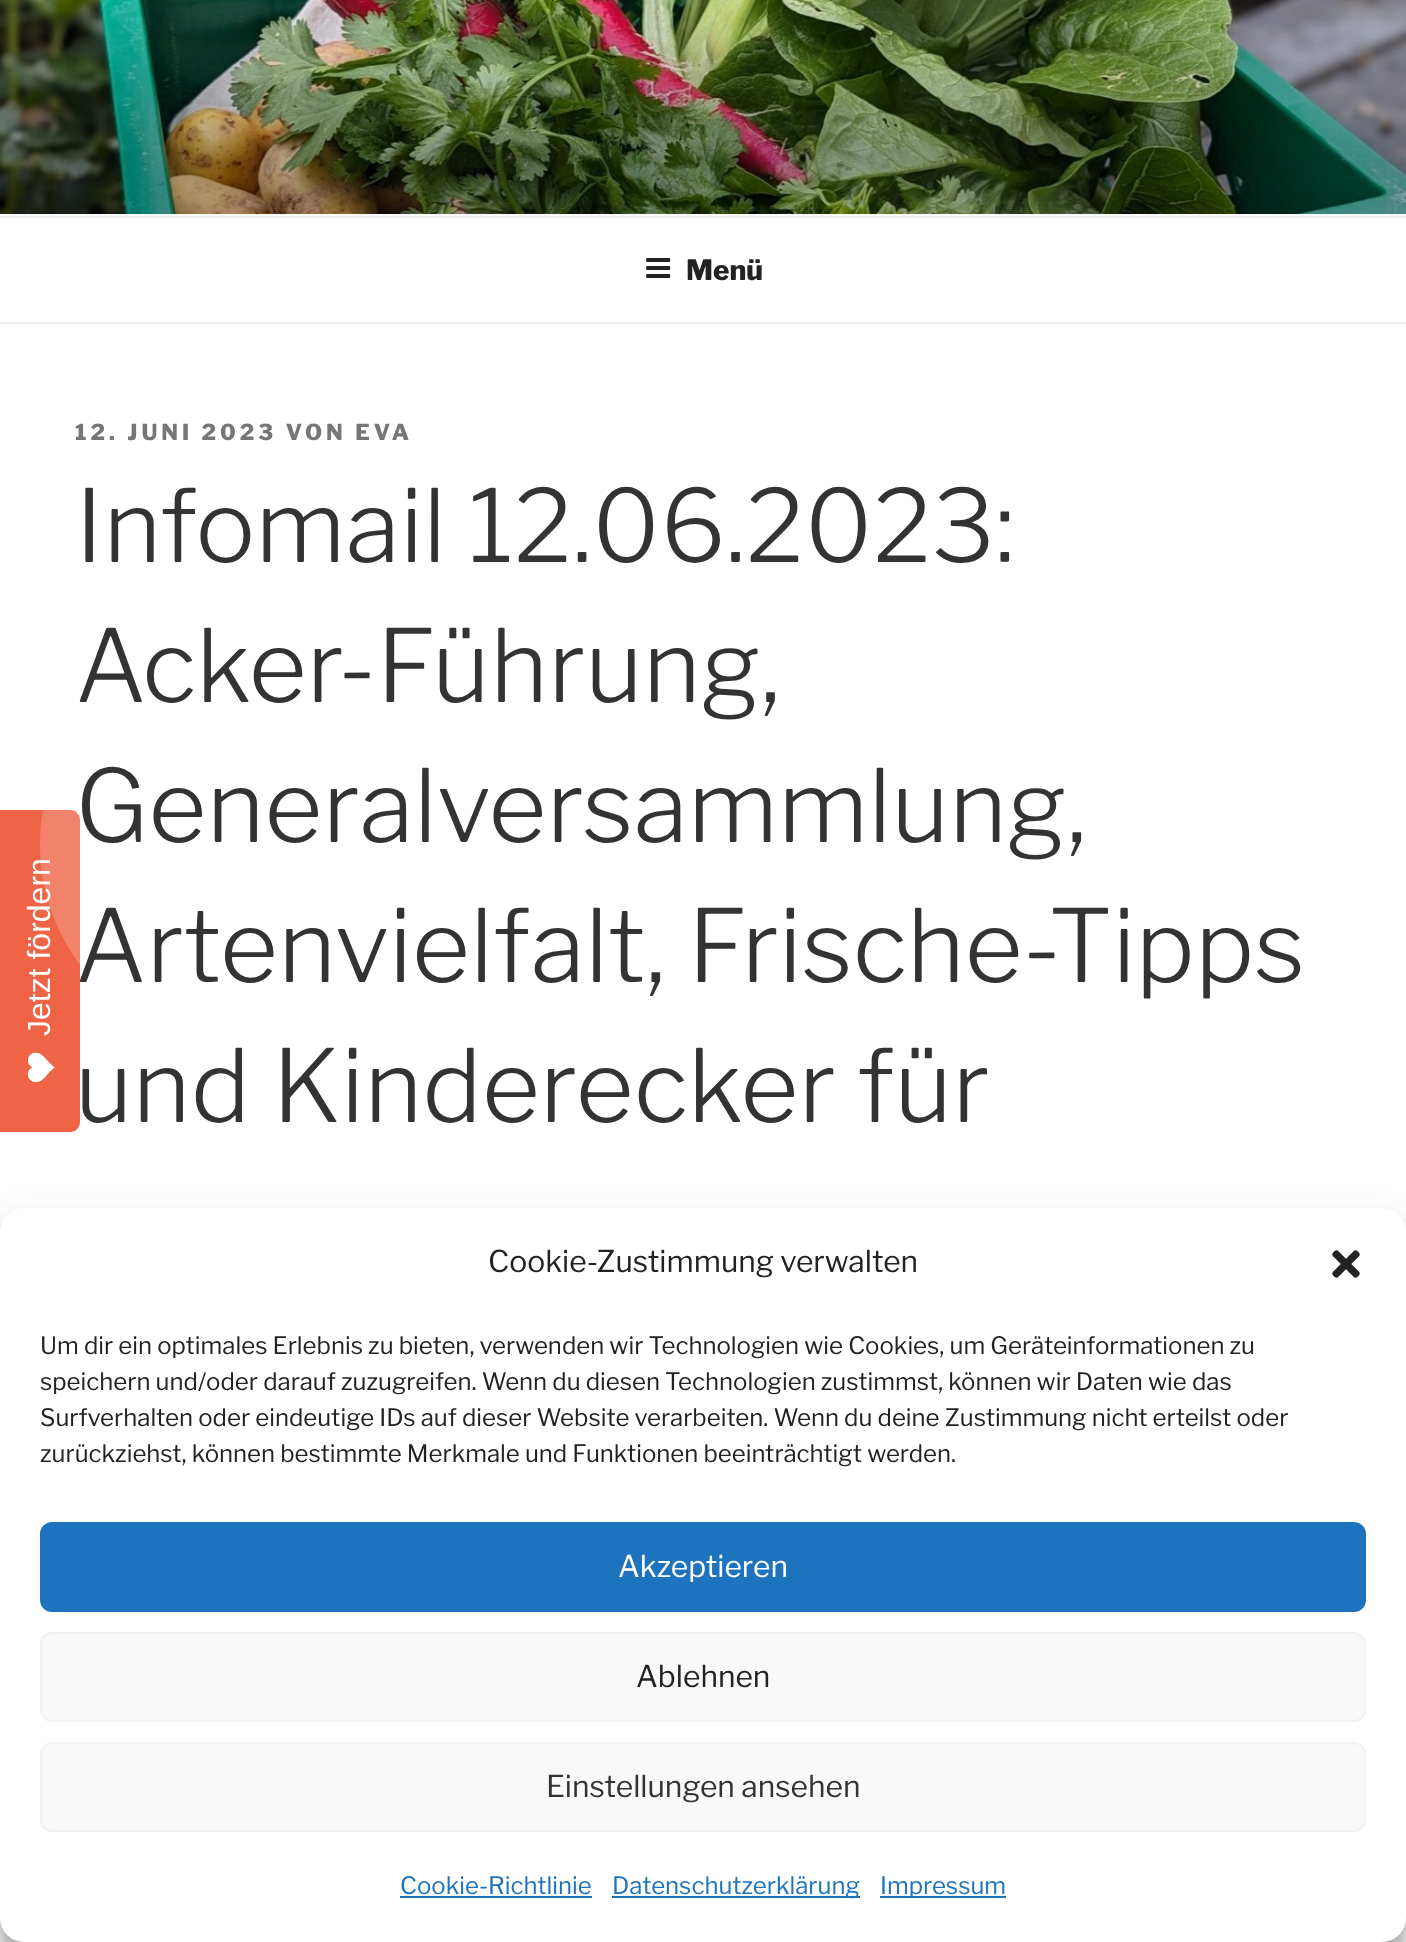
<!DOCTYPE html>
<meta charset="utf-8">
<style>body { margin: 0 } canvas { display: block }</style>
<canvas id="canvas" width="1406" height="1942"></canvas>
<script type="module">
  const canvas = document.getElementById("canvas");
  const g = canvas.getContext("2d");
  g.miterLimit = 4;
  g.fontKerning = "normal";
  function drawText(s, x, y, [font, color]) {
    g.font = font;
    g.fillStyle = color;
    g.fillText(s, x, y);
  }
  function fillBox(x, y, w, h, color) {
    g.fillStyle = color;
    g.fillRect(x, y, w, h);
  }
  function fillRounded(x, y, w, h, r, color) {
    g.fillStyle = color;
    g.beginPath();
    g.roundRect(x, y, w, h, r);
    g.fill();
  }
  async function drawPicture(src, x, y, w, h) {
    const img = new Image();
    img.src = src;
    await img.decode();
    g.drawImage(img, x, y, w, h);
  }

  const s1 = ["100 100px 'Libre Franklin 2'", "#333333"];
  const s2 = ["100 28px Libre Franklin", "#222222"];
  const s3 = ["100 22px Libre Franklin", "#767676"];
  const s4 = ["100 30px 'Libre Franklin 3'", "#222222"];
  const s5 = ["100 24px 'Libre Franklin 3'", "#222222"];
  const s6 = ["100 30px 'Libre Franklin 3'", "#FFFFFF"];
  const s7 = ["100 30px 'Libre Franklin 3'", "#333333"];
  const s8 = ["100 24px 'Libre Franklin 3'", "#1E73BE"];

  fillBox(0, 0, 1406, 1942, "#FFFFFF");
  drawText("Artenvielfalt, Frische-Tipps", 75, 982, s1);
  g.fillStyle = "#EF6446";
  g.beginPath();
  g.moveTo(0, 1132);
  g.lineTo(0, 810);
  g.lineTo(70, 810);
  g.bezierCurveTo(76, 810, 80, 815, 80, 820);
  g.lineTo(80, 1122);
  g.bezierCurveTo(80, 1127, 76, 1132, 70, 1132);
  g.closePath();
  g.fill();
  g.font = "32px Liberation Sans";
  g.fillStyle = "#FFFFFF";
  g.save();
  g.translate(50, 1036);
  g.rotate(-90 * Math.PI / 180);
  g.fillText("Jetzt fördern", 0, 0);
  g.restore();
  g.fillStyle = "rgba(255, 255, 255, 0.2)";
  g.beginPath();
  g.moveTo(40, 845);
  g.bezierCurveTo(40, 890, 55, 931, 80, 965);
  g.lineTo(80, 820);
  g.bezierCurveTo(80, 815, 76, 810, 70, 810);
  g.lineTo(43, 810);
  g.bezierCurveTo(41, 821, 40, 833, 40, 845);
  g.closePath();
  g.fill();
  await drawPicture("pic1.png", 27, 1052, 28, 31);
  fillBox(0, 214, 1406, 2, "#FAFAFA");
  await drawPicture("pic2.png", 0, 0, 1406, 214);
  fillBox(0, 216, 1406, 2, "#EEEEEE");
  fillBox(0, 322, 1406, 2, "#EEEEEE");
  await drawPicture("pic3.png", 646, 258, 25, 20);
  drawText("Menü", 686, 280, s2);
  g.letterSpacing = "4px";
  drawText("12. JUNI 2023 VON EVA", 75, 440, s3);
  g.letterSpacing = "0px";
  drawText("Infomail 12.06.2023:", 75, 562, s1);
  drawText("Acker-Führung,", 75, 702, s1);
  drawText("Generalversammlung,", 75, 842, s1);
  drawText("und Kinderecker für", 75, 1122, s1);
  g.fillStyle = "rgba(0, 0, 0, 0.23)";
  g.filter = "blur(6px)";
  g.beginPath();
  g.roundRect(0, 1220, 1406, 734, 24);
  g.fill();
  g.filter = "none";
  g.fillStyle = "rgba(0, 0, 0, 0.19)";
  g.filter = "blur(20px)";
  g.beginPath();
  g.roundRect(0, 1228, 1406, 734, 24);
  g.fill();
  g.filter = "none";
  fillRounded(0, 1208, 1406, 734, 24, "#FFFFFF");
  drawText("Cookie-Zustimmung verwalten", 488, 1272, s4);
  await drawPicture("pic4.png", 1332, 1250, 28, 28);
  drawText("Um dir ein optimales Erlebnis zu bieten, verwenden wir Technologien wie Cookies, um Geräteinformationen zu", 40, 1354, s5);
  drawText("speichern und/oder darauf zuzugreifen. Wenn du diesen Technologien zustimmst, können wir Daten wie das", 40, 1390, s5);
  drawText("Surfverhalten oder eindeutige IDs auf dieser Website verarbeiten. Wenn du deine Zustimmung nicht erteilst oder", 40, 1426, s5);
  drawText("zurückziehst, können bestimmte Merkmale und Funktionen beeinträchtigt werden.", 40, 1462, s5);
  g.fillStyle = "#1E73BE";
  g.beginPath();
  g.roundRect(41, 1523, 1324, 88, 11);
  g.fill();
  g.strokeStyle = "#1E73BE";
  g.lineWidth = 2;
  g.stroke();
  drawText("Akzeptieren", 618, 1577, s6);
  g.fillStyle = "#F9F9F9";
  g.beginPath();
  g.roundRect(41, 1633, 1324, 88, 11);
  g.fill();
  g.strokeStyle = "#F2F2F2";
  g.stroke();
  drawText("Ablehnen", 636, 1687, s4);
  g.fillStyle = "#F9F9F9";
  g.beginPath();
  g.roundRect(41, 1743, 1324, 88, 11);
  g.fill();
  g.stroke();
  drawText("Einstellungen ansehen", 546, 1797, s7);
  drawText("Cookie-Richtlinie", 400, 1894, s8);
  fillBox(400, 1896, 192, 2, "#1E73BE");
  fillBox(612, 1896, 248, 2, "#1E73BE");
  drawText("Datenschutzerklärung", 612, 1894, s8);
  fillBox(880, 1896, 126, 2, "#1E73BE");
  drawText("Impressum", 880, 1894, s8);
</script>
